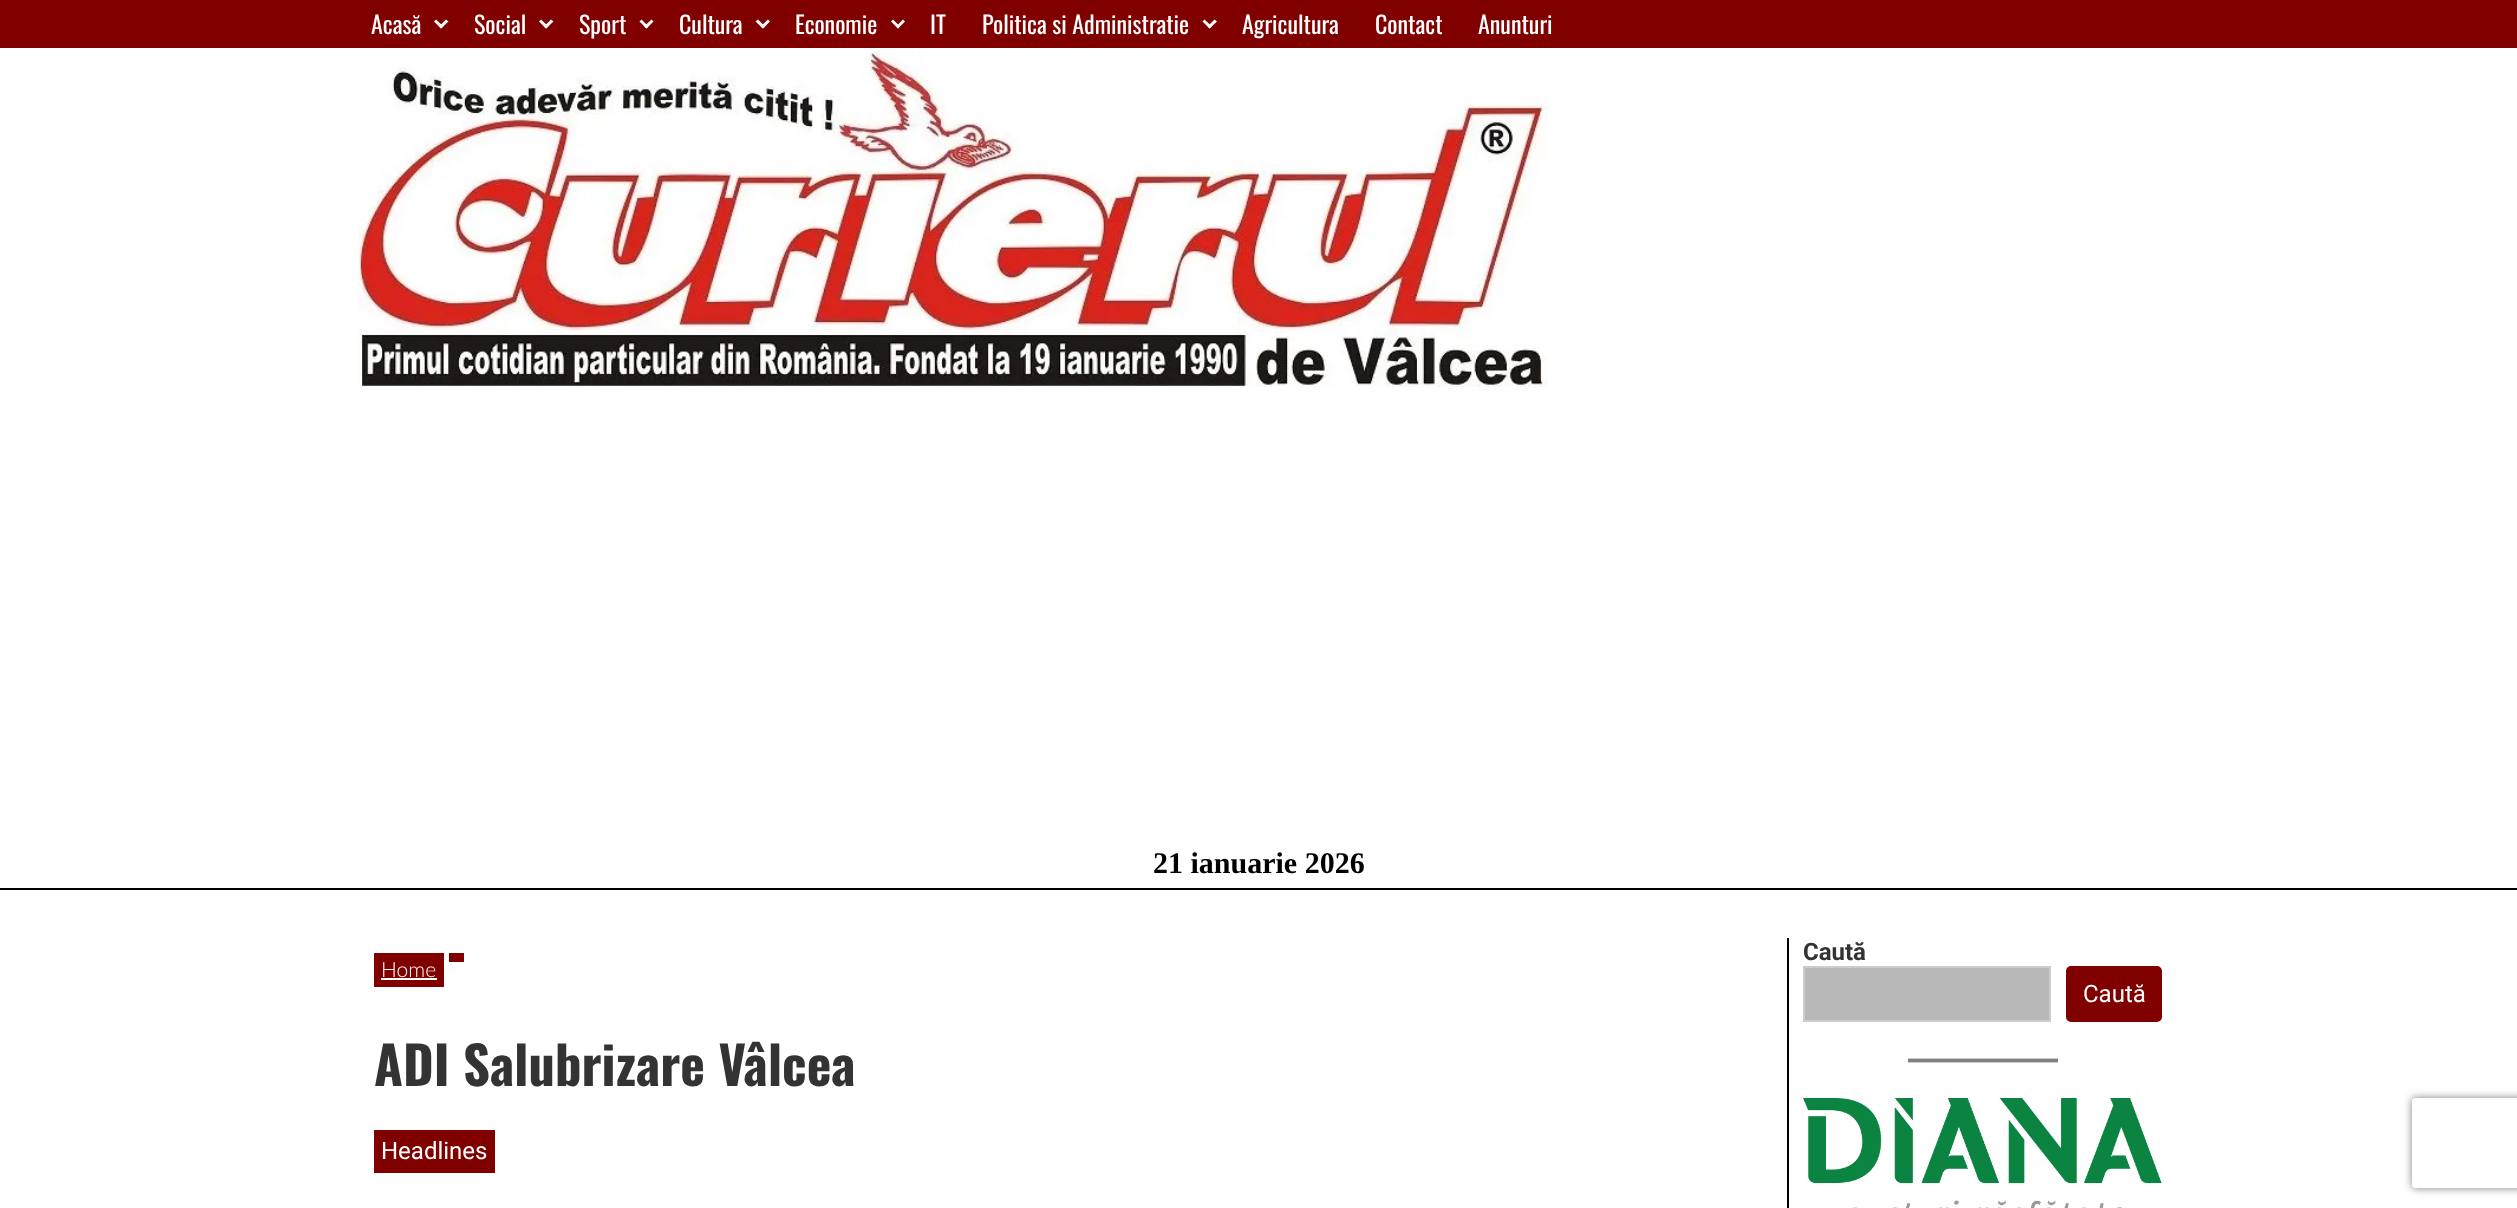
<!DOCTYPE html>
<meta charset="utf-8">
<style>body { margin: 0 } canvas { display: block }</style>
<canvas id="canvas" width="2517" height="1208"></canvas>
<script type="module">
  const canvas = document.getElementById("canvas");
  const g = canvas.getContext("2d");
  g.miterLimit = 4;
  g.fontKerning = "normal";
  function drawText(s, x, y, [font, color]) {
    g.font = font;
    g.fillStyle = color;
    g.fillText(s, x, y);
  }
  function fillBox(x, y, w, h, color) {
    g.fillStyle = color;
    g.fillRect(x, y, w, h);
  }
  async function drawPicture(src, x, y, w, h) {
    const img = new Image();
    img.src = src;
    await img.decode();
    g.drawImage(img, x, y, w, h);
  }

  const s1 = ["24px Oswald", "#FFFFFF"];
  const s2 = ["bold 30px Liberation Serif", "#000000"];
  const s3 = ["300 21px Lato", "#FFFFFF"];
  const s4 = ["bold 52.5px Oswald", "#333333"];
  const s5 = ["24px Roboto", "#FFFFFF"];
  const s6 = ["bold 24px Roboto", "#333333"];

  fillBox(0, 0, 2517, 1208, "#FFFFFF");
  fillBox(0, 0, 2517, 48, "#800000");
  drawText("Acasă", 371, 34, s1);
  g.beginPath();
  g.moveTo(446, 19.5);
  g.lineTo(448.5, 21.5);
  g.lineTo(441, 28.5);
  g.lineTo(439, 26.5);
  g.closePath();
  g.fill();
  g.beginPath();
  g.moveTo(436, 19.5);
  g.lineTo(443.5, 26.5);
  g.lineTo(441, 28.5);
  g.lineTo(434, 21.5);
  g.closePath();
  g.fill();
  drawText("Social", 474, 34, s1);
  g.beginPath();
  g.moveTo(551, 19.5);
  g.lineTo(553.5, 21.5);
  g.lineTo(546, 28.5);
  g.lineTo(544, 26.5);
  g.closePath();
  g.fill();
  g.beginPath();
  g.moveTo(541, 19.5);
  g.lineTo(548.5, 26.5);
  g.lineTo(546, 28.5);
  g.lineTo(539, 21.5);
  g.closePath();
  g.fill();
  drawText("Sport", 579, 34, s1);
  g.beginPath();
  g.moveTo(651.5, 19.5);
  g.lineTo(653.5, 21.5);
  g.lineTo(646.5, 28.5);
  g.lineTo(644, 26.5);
  g.closePath();
  g.fill();
  g.beginPath();
  g.moveTo(641.5, 19.5);
  g.lineTo(648.5, 26.5);
  g.lineTo(646.5, 28.5);
  g.lineTo(639.5, 21.5);
  g.closePath();
  g.fill();
  drawText("Cultura", 679, 34, s1);
  g.beginPath();
  g.moveTo(768, 19.5);
  g.lineTo(770, 21.5);
  g.lineTo(763, 28.5);
  g.lineTo(760.5, 26.5);
  g.closePath();
  g.fill();
  g.beginPath();
  g.moveTo(758, 19.5);
  g.lineTo(765, 26.5);
  g.lineTo(763, 28.5);
  g.lineTo(755.5, 21.5);
  g.closePath();
  g.fill();
  drawText("Economie", 795, 34, s1);
  g.beginPath();
  g.moveTo(903, 19.5);
  g.lineTo(905, 21.5);
  g.lineTo(898, 28.5);
  g.lineTo(896, 26.5);
  g.closePath();
  g.fill();
  g.beginPath();
  g.moveTo(893, 19.5);
  g.lineTo(900, 26.5);
  g.lineTo(898, 28.5);
  g.lineTo(891, 21.5);
  g.closePath();
  g.fill();
  drawText("IT", 930, 34, s1);
  drawText("Politica si Administratie", 982, 34, s1);
  g.beginPath();
  g.moveTo(1214.5, 19.5);
  g.lineTo(1217, 21.5);
  g.lineTo(1209.5, 28.5);
  g.lineTo(1207.5, 26.5);
  g.closePath();
  g.fill();
  g.beginPath();
  g.moveTo(1204.5, 19.5);
  g.lineTo(1212, 26.5);
  g.lineTo(1209.5, 28.5);
  g.lineTo(1202.5, 21.5);
  g.closePath();
  g.fill();
  drawText("Agricultura", 1242, 34, s1);
  drawText("Contact", 1375, 34, s1);
  drawText("Anunturi", 1478, 34, s1);
  await drawPicture("pic1.png", 358, 48, 1190, 339);
  fillBox(0, 888, 2517, 2, "#000000");
  drawText("21 ianuarie 2026", 1153, 873, s2);
  fillBox(449, 953, 15, 9, "#800000");
  fillBox(374, 953, 70, 34, "#800000");
  drawText("Home", 381, 977, s3);
  fillBox(381, 978, 56, 2, "#FFFFFF");
  drawText("ADI Salubrizare Vâlcea", 374, 1086, s4);
  fillBox(374, 1130, 121, 43, "#800000");
  drawText("Headlines", 381, 1159, s5);
  fillBox(1787, 938, 2, 270, "#000000");
  drawText("Caută", 1803, 960, s6);
  g.fillStyle = "#B8B8B8";
  g.beginPath();
  g.rect(1804, 967, 246, 54);
  g.fill();
  g.strokeStyle = "#CCCCCC";
  g.lineWidth = 2;
  g.stroke();
  g.fillStyle = "#800000";
  g.beginPath();
  g.roundRect(2067, 967, 94, 54, 4);
  g.fill();
  g.strokeStyle = "#800000";
  g.stroke();
  drawText("Caută", 2083, 1002, s5);
  fillBox(1908, 1058, 150, 5, "#CCCCCC");
  fillBox(1908, 1059, 150, 3, "#808080");
  await drawPicture("pic2.png", 1803, 1098, 359, 110);
  g.save();
  g.beginPath();
  g.moveTo(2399, 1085);
  g.lineTo(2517, 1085);
  g.lineTo(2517, 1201);
  g.lineTo(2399, 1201);
  g.closePath();
  g.moveTo(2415, 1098);
  g.lineTo(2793, 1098);
  g.bezierCurveTo(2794.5, 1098, 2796, 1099.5, 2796, 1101);
  g.lineTo(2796, 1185);
  g.bezierCurveTo(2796, 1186.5, 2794.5, 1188, 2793, 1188);
  g.lineTo(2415, 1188);
  g.bezierCurveTo(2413.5, 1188, 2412, 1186.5, 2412, 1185);
  g.lineTo(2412, 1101);
  g.bezierCurveTo(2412, 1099.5, 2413.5, 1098, 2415, 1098);
  g.closePath();
  g.clip("evenodd");
  g.filter = "blur(4px)";
  g.beginPath();
  g.roundRect(2412, 1098, 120, 90, 3);
  g.fill();
  g.filter = "none";
  g.restore();
</script>
